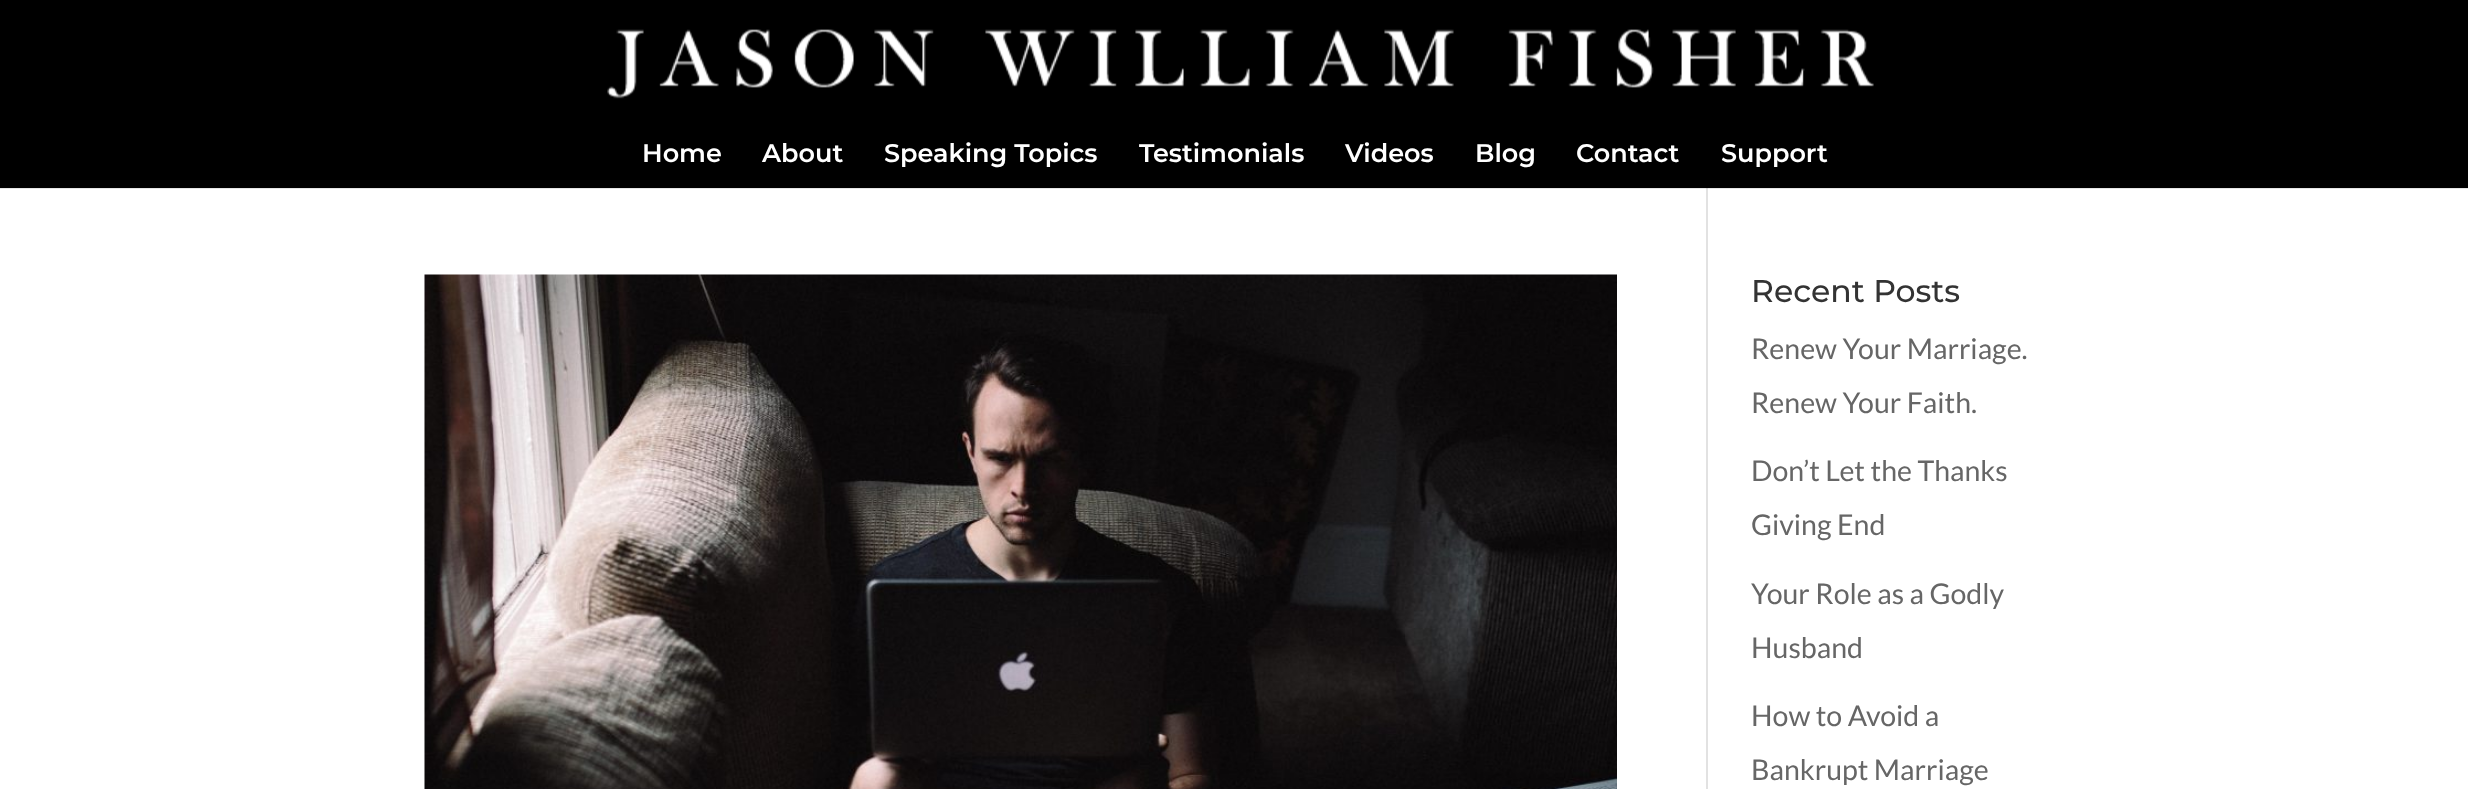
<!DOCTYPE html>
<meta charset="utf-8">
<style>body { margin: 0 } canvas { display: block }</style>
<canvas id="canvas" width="2468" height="789"></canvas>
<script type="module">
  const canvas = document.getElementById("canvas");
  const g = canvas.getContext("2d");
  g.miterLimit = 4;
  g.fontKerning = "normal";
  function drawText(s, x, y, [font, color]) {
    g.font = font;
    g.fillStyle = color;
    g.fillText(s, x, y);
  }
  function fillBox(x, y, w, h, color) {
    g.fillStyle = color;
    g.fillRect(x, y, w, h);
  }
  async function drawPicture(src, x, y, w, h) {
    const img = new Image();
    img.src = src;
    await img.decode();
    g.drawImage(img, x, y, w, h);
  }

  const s1 = ["100 25.5px 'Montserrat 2'", "#FFFFFF"];
  const s2 = ["100 31.5px Montserrat", "#333333"];
  const s3 = ["28.5px Lato", "#666666"];

  fillBox(0, 0, 2468, 789, "#FFFFFF");
  fillBox(0, 0, 2468, 188, "#000000");
  await drawPicture("pic1.png", 607, 29, 1267, 70);
  drawText("Home", 642, 162, s1);
  drawText("About", 762, 162, s1);
  drawText("Speaking Topics", 884, 162, s1);
  drawText("Testimonials", 1139, 162, s1);
  drawText("Videos", 1345, 162, s1);
  drawText("Blog", 1475, 162, s1);
  drawText("Contact", 1576, 162, s1);
  drawText("Support", 1721, 162, s1);
  fillBox(0, 188, 2468, 1, "#E6E6E6");
  fillBox(1706, 188, 2, 601, "#E2E2E2");
  fillBox(1706, 188, 2, 1, "#CBCBCB");
  await drawPicture("pic2.png", 424, 274, 1193, 515);
  drawText("Recent Posts", 1751, 302, s2);
  drawText("Renew Your Marriage.", 1751, 359, s3);
  drawText("Renew Your Faith.", 1751, 413, s3);
  drawText("Don’t Let the Thanks", 1751, 481, s3);
  drawText("Giving End", 1751, 535, s3);
  drawText("Your Role as a Godly", 1751, 604, s3);
  drawText("Husband", 1751, 658, s3);
  drawText("How to Avoid a", 1751, 726, s3);
  drawText("Bankrupt Marriage", 1751, 780, s3);
</script>
